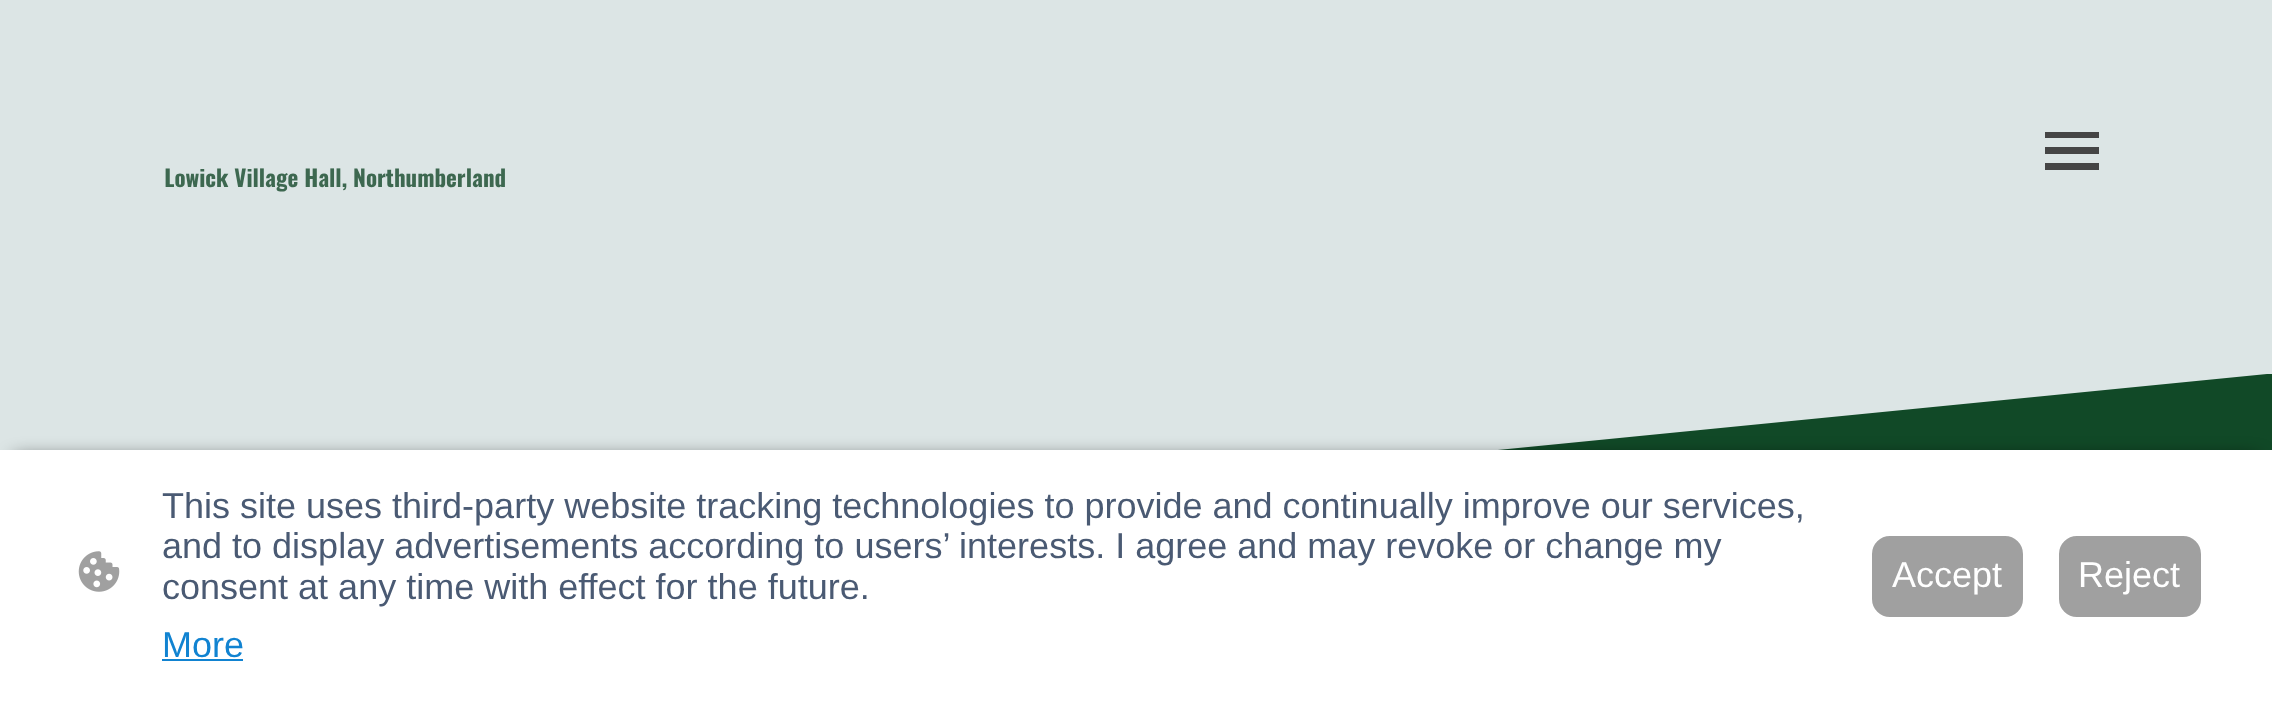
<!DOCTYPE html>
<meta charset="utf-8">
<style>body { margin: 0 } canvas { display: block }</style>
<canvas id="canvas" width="2272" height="702"></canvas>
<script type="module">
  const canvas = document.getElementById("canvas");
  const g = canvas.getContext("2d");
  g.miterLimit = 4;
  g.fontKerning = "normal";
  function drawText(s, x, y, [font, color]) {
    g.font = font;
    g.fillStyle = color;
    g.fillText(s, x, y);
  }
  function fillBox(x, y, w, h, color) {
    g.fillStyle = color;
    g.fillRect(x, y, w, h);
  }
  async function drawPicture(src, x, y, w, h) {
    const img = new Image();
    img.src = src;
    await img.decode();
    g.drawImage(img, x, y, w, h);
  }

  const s1 = ["36px Liberation Sans", "#4A5A73"];
  const s2 = ["36px Liberation Sans", "#1183D1"];
  const s3 = ["36px Liberation Sans", "#FFFFFF"];

  fillBox(0, 0, 2272, 702, "#DCE5E5");
  fillBox(2045, 132, 54, 6, "#454545");
  fillBox(2045, 147, 54, 7, "#454545");
  fillBox(2045, 163, 54, 7, "#454545");
  await drawPicture("pic1.png", 165, 168, 340, 24);
  g.fillStyle = "#114927";
  g.beginPath();
  g.moveTo(0, 598);
  g.lineTo(0, 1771);
  g.lineTo(2272, 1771);
  g.lineTo(2272, 374);
  g.lineTo(2267, 374);
  g.closePath();
  g.fill();
  g.fillStyle = "rgba(0, 0, 0, 0.63)";
  g.filter = "blur(9px)";
  g.beginPath();
  g.rect(14, 457, 2245, 225);
  g.fill();
  g.filter = "none";
  fillBox(0, 450, 2272, 252, "#FFFFFF");
  await drawPicture("pic2.png", 78, 551, 42, 41);
  drawText("This site uses third-party website tracking technologies to provide and continually improve our services,", 162, 518, s1);
  drawText("and to display advertisements according to users’ interests. I agree and may revoke or change my", 162, 558, s1);
  drawText("consent at any time with effect for the future.", 162, 599, s1);
  drawText("More", 162, 657, s2);
  fillBox(162, 659, 81, 2, "#1183D1");
  g.fillStyle = "#A0A0A0";
  g.beginPath();
  g.roundRect(1873, 537, 149, 79, 17);
  g.fill();
  g.strokeStyle = "#A0A0A0";
  g.lineWidth = 2;
  g.stroke();
  drawText("Accept", 1892, 587, s3);
  g.fillStyle = "#A0A0A0";
  g.beginPath();
  g.roundRect(2060, 537, 140, 79, 17);
  g.fill();
  g.stroke();
  drawText("Reject", 2078, 587, s3);
</script>
